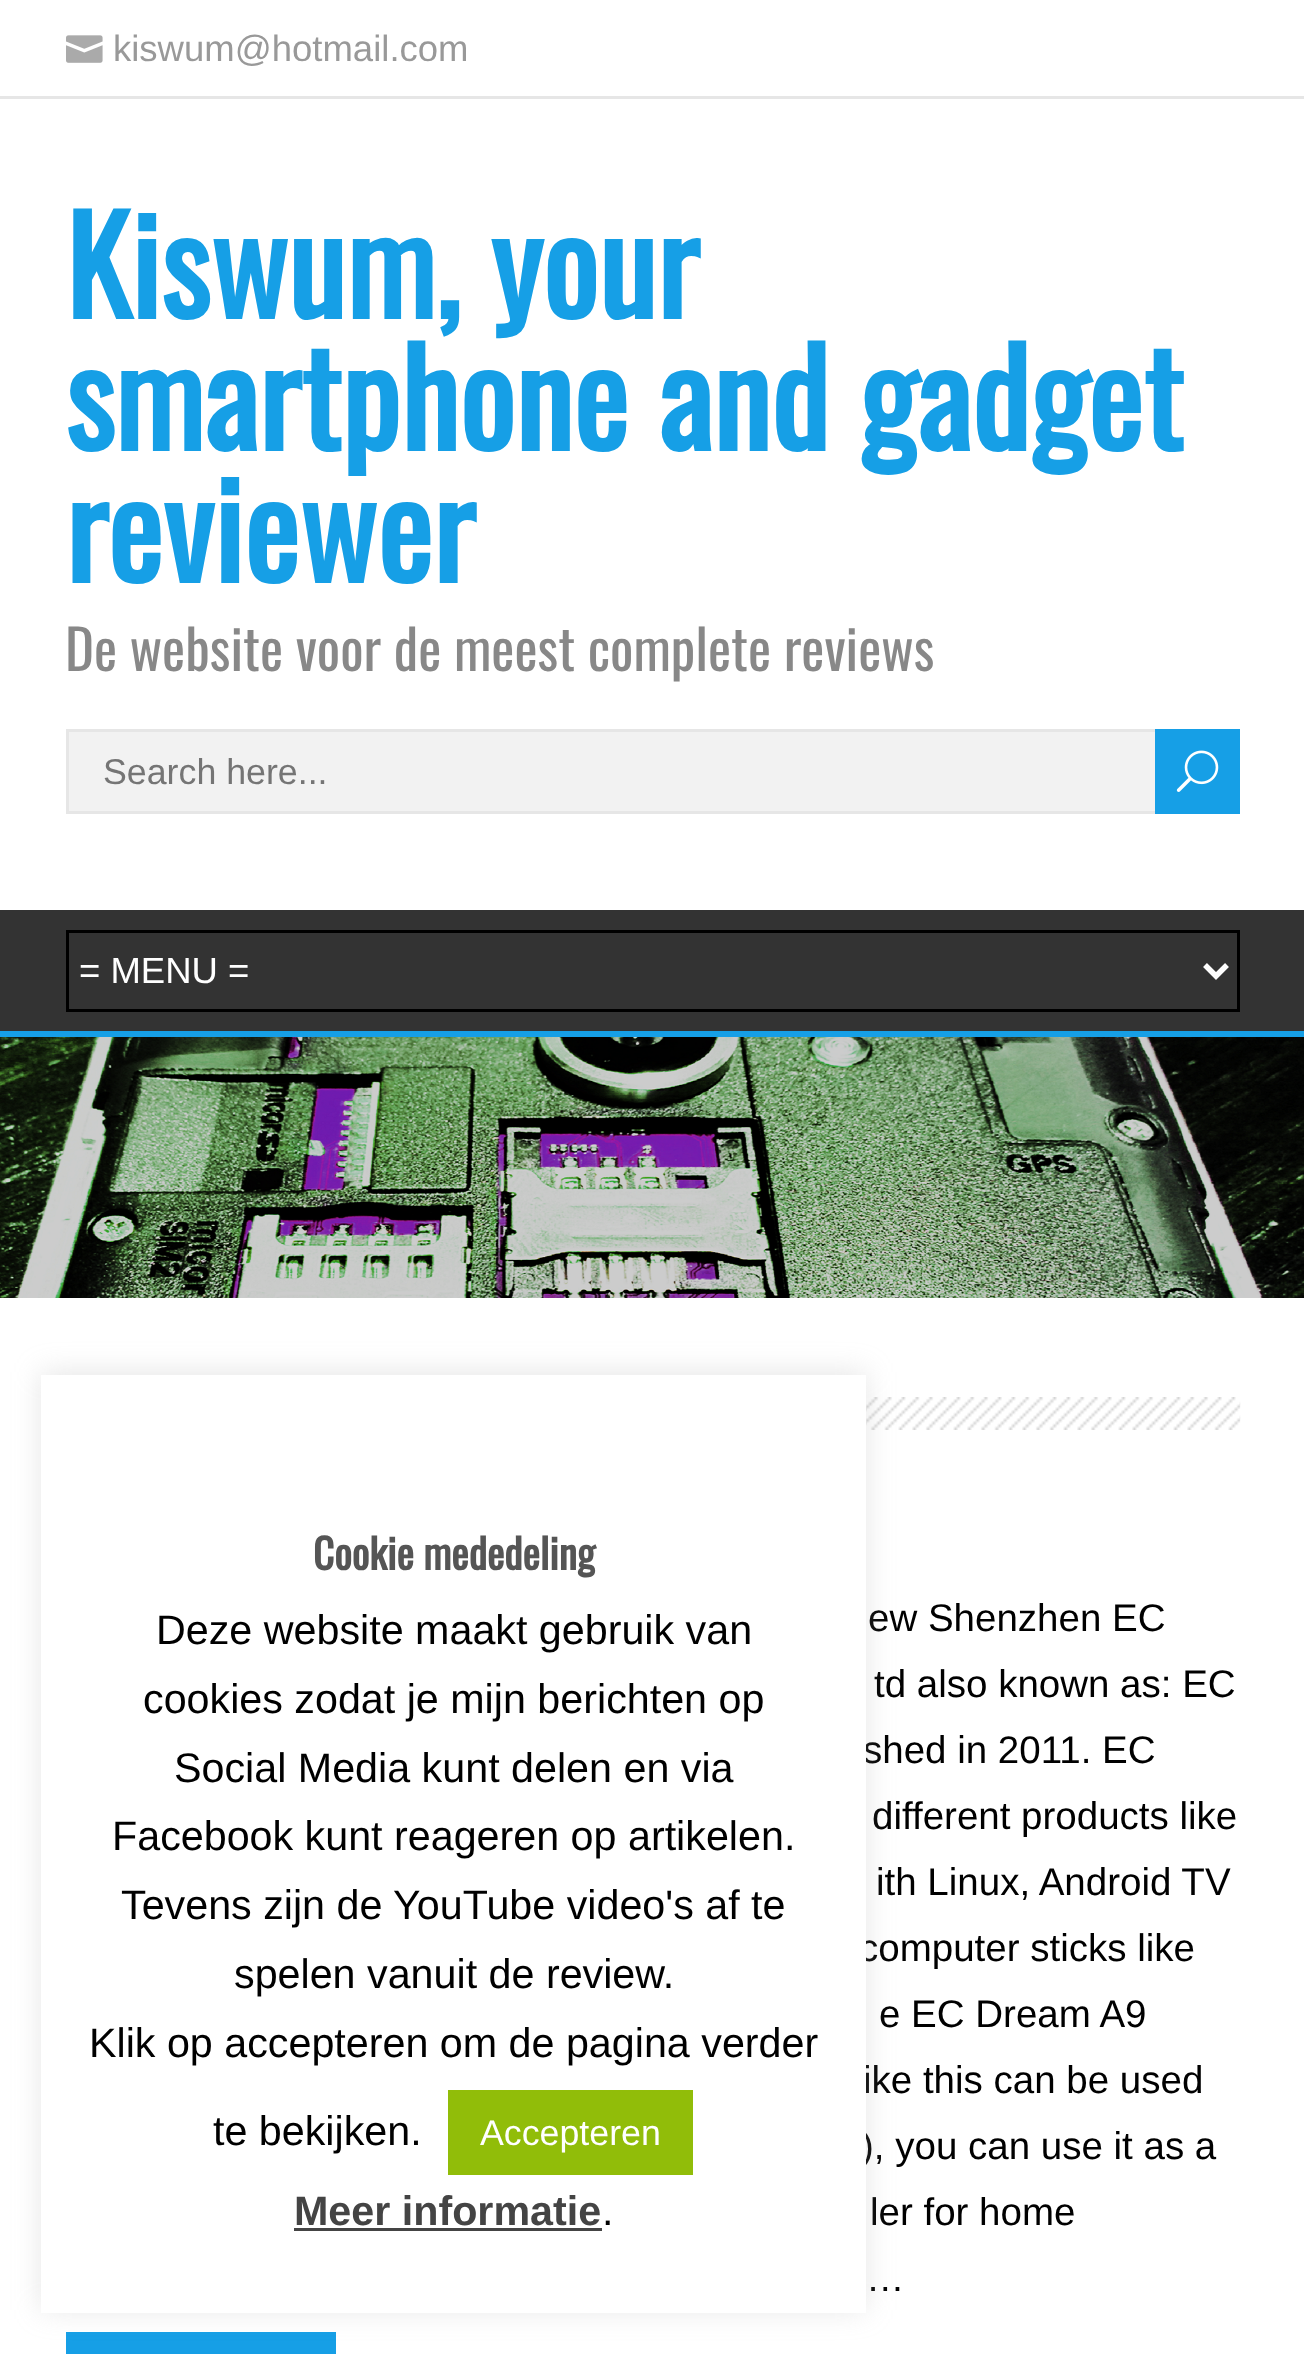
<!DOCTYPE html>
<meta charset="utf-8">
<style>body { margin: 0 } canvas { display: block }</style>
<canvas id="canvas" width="1304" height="2354"></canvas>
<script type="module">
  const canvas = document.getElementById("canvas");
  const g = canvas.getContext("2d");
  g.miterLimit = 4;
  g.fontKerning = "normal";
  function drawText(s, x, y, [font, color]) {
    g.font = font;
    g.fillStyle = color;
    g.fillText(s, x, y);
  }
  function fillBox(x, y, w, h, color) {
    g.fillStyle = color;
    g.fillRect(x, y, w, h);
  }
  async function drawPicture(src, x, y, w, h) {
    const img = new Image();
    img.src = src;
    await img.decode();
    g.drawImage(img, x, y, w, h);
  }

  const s1 = ["36.5px Liberation Sans", "#999999"];
  const s2 = ["bold 132px Oswald", "#169FE6"];
  const s3 = ["55px Oswald", "#888888"];
  const s4 = ["35.75px Liberation Sans", "#757575"];
  const s5 = ["36.5px Liberation Sans", "#FFFFFF"];
  const s6 = ["38.5px Liberation Sans", "#000000"];
  const s7 = ["bold 41.25px Oswald", "#555555"];
  const s8 = ["41.25px Liberation Sans", "#000000"];
  const s9 = ["35.75px Liberation Sans", "#FFFFFF"];
  const s10 = ["bold 41.25px Liberation Sans", "#444444"];

  fillBox(0, 0, 1304, 2354, "#FFFFFF");
  fillBox(0, 96, 1304, 3, "#E6E6E6");
  await drawPicture("pic1.png", 66, 35, 37, 28);
  drawText("kiswum@hotmail.com", 113, 61, s1);
  drawText("Kiswum, your", 65, 319, s2);
  drawText("smartphone and gadget", 65, 451, s2);
  drawText("reviewer", 65, 583, s2);
  drawText("De website voor de meest complete reviews", 65, 671, s3);
  fillBox(69, 732, 1086, 79, "#F2F2F2");
  g.strokeStyle = "#E6E6E6";
  g.lineWidth = 3;
  g.strokeRect(67.5, 730.5, 1166, 82);
  drawText("Search here...", 103, 784, s4);
  fillBox(1155, 729, 85, 85, "#169FE6");
  await drawPicture("pic2.png", 1176, 750, 43, 42);
  fillBox(0, 910, 1304, 121, "#333333");
  fillBox(0, 1031, 1304, 6, "#169FE6");
  g.strokeStyle = "#000000";
  g.strokeRect(67.5, 931.5, 1171, 79);
  g.beginPath();
  g.moveTo(1205, 965);
  g.lineTo(1216, 976);
  g.lineTo(1227, 965);
  g.strokeStyle = "#FFFFFF";
  g.lineWidth = 5.5;
  g.stroke();
  drawText("= MENU =", 79, 983, s5);
  await drawPicture("pic3.png", 0, 1037, 1304, 261);
  await drawPicture("pic4.png", 866, 1397, 375, 33);
  drawText("ew Shenzhen EC", 868, 1631, s6);
  drawText("td also known as: EC", 874, 1697, s6);
  drawText("shed in 2011. EC", 863, 1763, s6);
  drawText("different products like", 872, 1829, s6);
  drawText("ith Linux, Android TV", 876, 1895, s6);
  drawText("computer sticks like", 859, 1961, s6);
  drawText("e EC Dream A9", 879, 2027, s6);
  drawText("ike this can be used", 863, 2093, s6);
  drawText("), you can use it as a", 861, 2159, s6);
  drawText("ler for home", 870, 2225, s6);
  drawText("…", 866, 2291, s6);
  fillBox(66, 2332, 270, 22, "#169FE6");
  g.fillStyle = "rgba(172, 171, 171, 0.3)";
  g.filter = "blur(14px)";
  g.beginPath();
  g.rect(41, 1372, 825, 938);
  g.fill();
  g.filter = "none";
  fillBox(41, 1375, 825, 938, "#FFFFFF");
  drawText("Cookie mededeling", 313, 1570, s7);
  drawText("Deze website maakt gebruik van", 156, 1644, s8);
  drawText("cookies zodat je mijn berichten op", 143, 1713, s8);
  drawText("Social Media kunt delen en via", 174, 1782, s8);
  drawText("Facebook kunt reageren op artikelen.", 112, 1850, s8);
  drawText("Tevens zijn de YouTube video's af te", 121, 1919, s8);
  drawText("spelen vanuit de review.", 234, 1988, s8);
  drawText("Klik op accepteren om de pagina verder", 89, 2057, s8);
  drawText("te bekijken.", 213, 2145, s8);
  fillBox(448, 2090, 245, 85, "#91BD09");
  drawText("Accepteren", 480, 2145, s9);
  drawText("Meer informatie", 294, 2225, s10);
  fillBox(294, 2228, 308, 3, "#444444");
  drawText(".", 602, 2225, s8);
</script>
